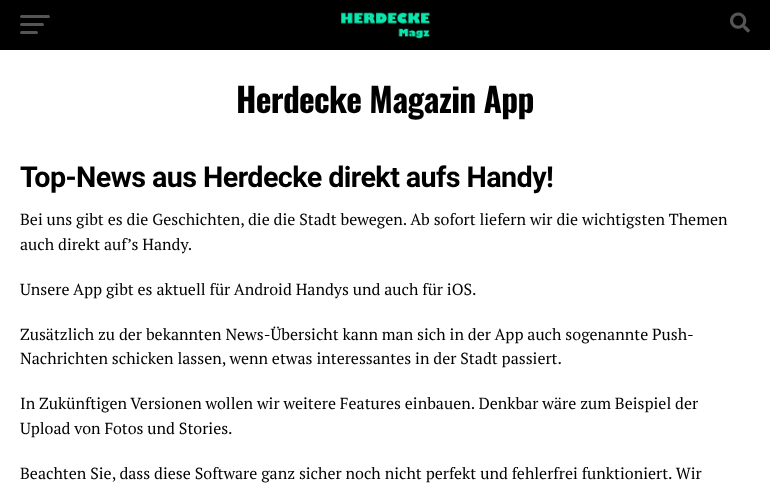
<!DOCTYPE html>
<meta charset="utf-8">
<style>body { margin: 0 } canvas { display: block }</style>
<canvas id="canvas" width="770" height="495"></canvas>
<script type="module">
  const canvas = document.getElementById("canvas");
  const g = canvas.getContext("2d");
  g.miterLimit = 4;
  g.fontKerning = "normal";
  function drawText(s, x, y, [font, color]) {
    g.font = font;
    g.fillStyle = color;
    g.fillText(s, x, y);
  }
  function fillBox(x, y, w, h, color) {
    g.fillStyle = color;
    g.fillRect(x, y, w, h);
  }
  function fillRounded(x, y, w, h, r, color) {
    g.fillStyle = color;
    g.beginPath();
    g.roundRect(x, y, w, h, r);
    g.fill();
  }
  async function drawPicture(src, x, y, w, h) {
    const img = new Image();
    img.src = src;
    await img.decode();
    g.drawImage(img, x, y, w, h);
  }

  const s1 = ["bold 33.5px Oswald", "#000000"];
  const s2 = ["bold 28.75px Roboto", "#000000"];
  const s3 = ["16px PT Serif", "#000000"];

  fillBox(0, 0, 770, 495, "#FFFFFF");
  fillBox(0, 0, 770, 50, "#000000");
  fillRounded(20, 15, 30, 3, 1.5, "#555555");
  fillRounded(20, 23, 24, 3, 1.5, "#555555");
  fillRounded(20, 31, 18, 3, 1.5, "#555555");
  await drawPicture("pic1.png", 341, 12, 89, 27);
  await drawPicture("pic2.png", 730, 12, 20, 21);
  g.letterSpacing = "-0.7px";
  drawText("Herdecke Magazin App", 236, 113, s1);
  g.letterSpacing = "-0.6px";
  drawText("Top-News aus Herdecke direkt aufs Handy!", 20, 187, s2);
  g.letterSpacing = "0px";
  drawText("Bei uns gibt es die Geschichten, die die Stadt bewegen. Ab sofort liefern wir die wichtigsten Themen", 20, 225, s3);
  drawText("auch direkt auf’s Handy.", 20, 250, s3);
  drawText("Unsere App gibt es aktuell für Android Handys und auch für iOS.", 20, 295, s3);
  drawText("Zusätzlich zu der bekannten News-Übersicht kann man sich in der App auch sogenannte Push-", 20, 340, s3);
  drawText("Nachrichten schicken lassen, wenn etwas interessantes in der Stadt passiert.", 20, 364, s3);
  drawText("In Zukünftigen Versionen wollen wir weitere Features einbauen. Denkbar wäre zum Beispiel der", 20, 409, s3);
  drawText("Upload von Fotos und Stories.", 20, 434, s3);
  drawText("Beachten Sie, dass diese Software ganz sicher noch nicht perfekt und fehlerfrei funktioniert. Wir", 20, 479, s3);
</script>
